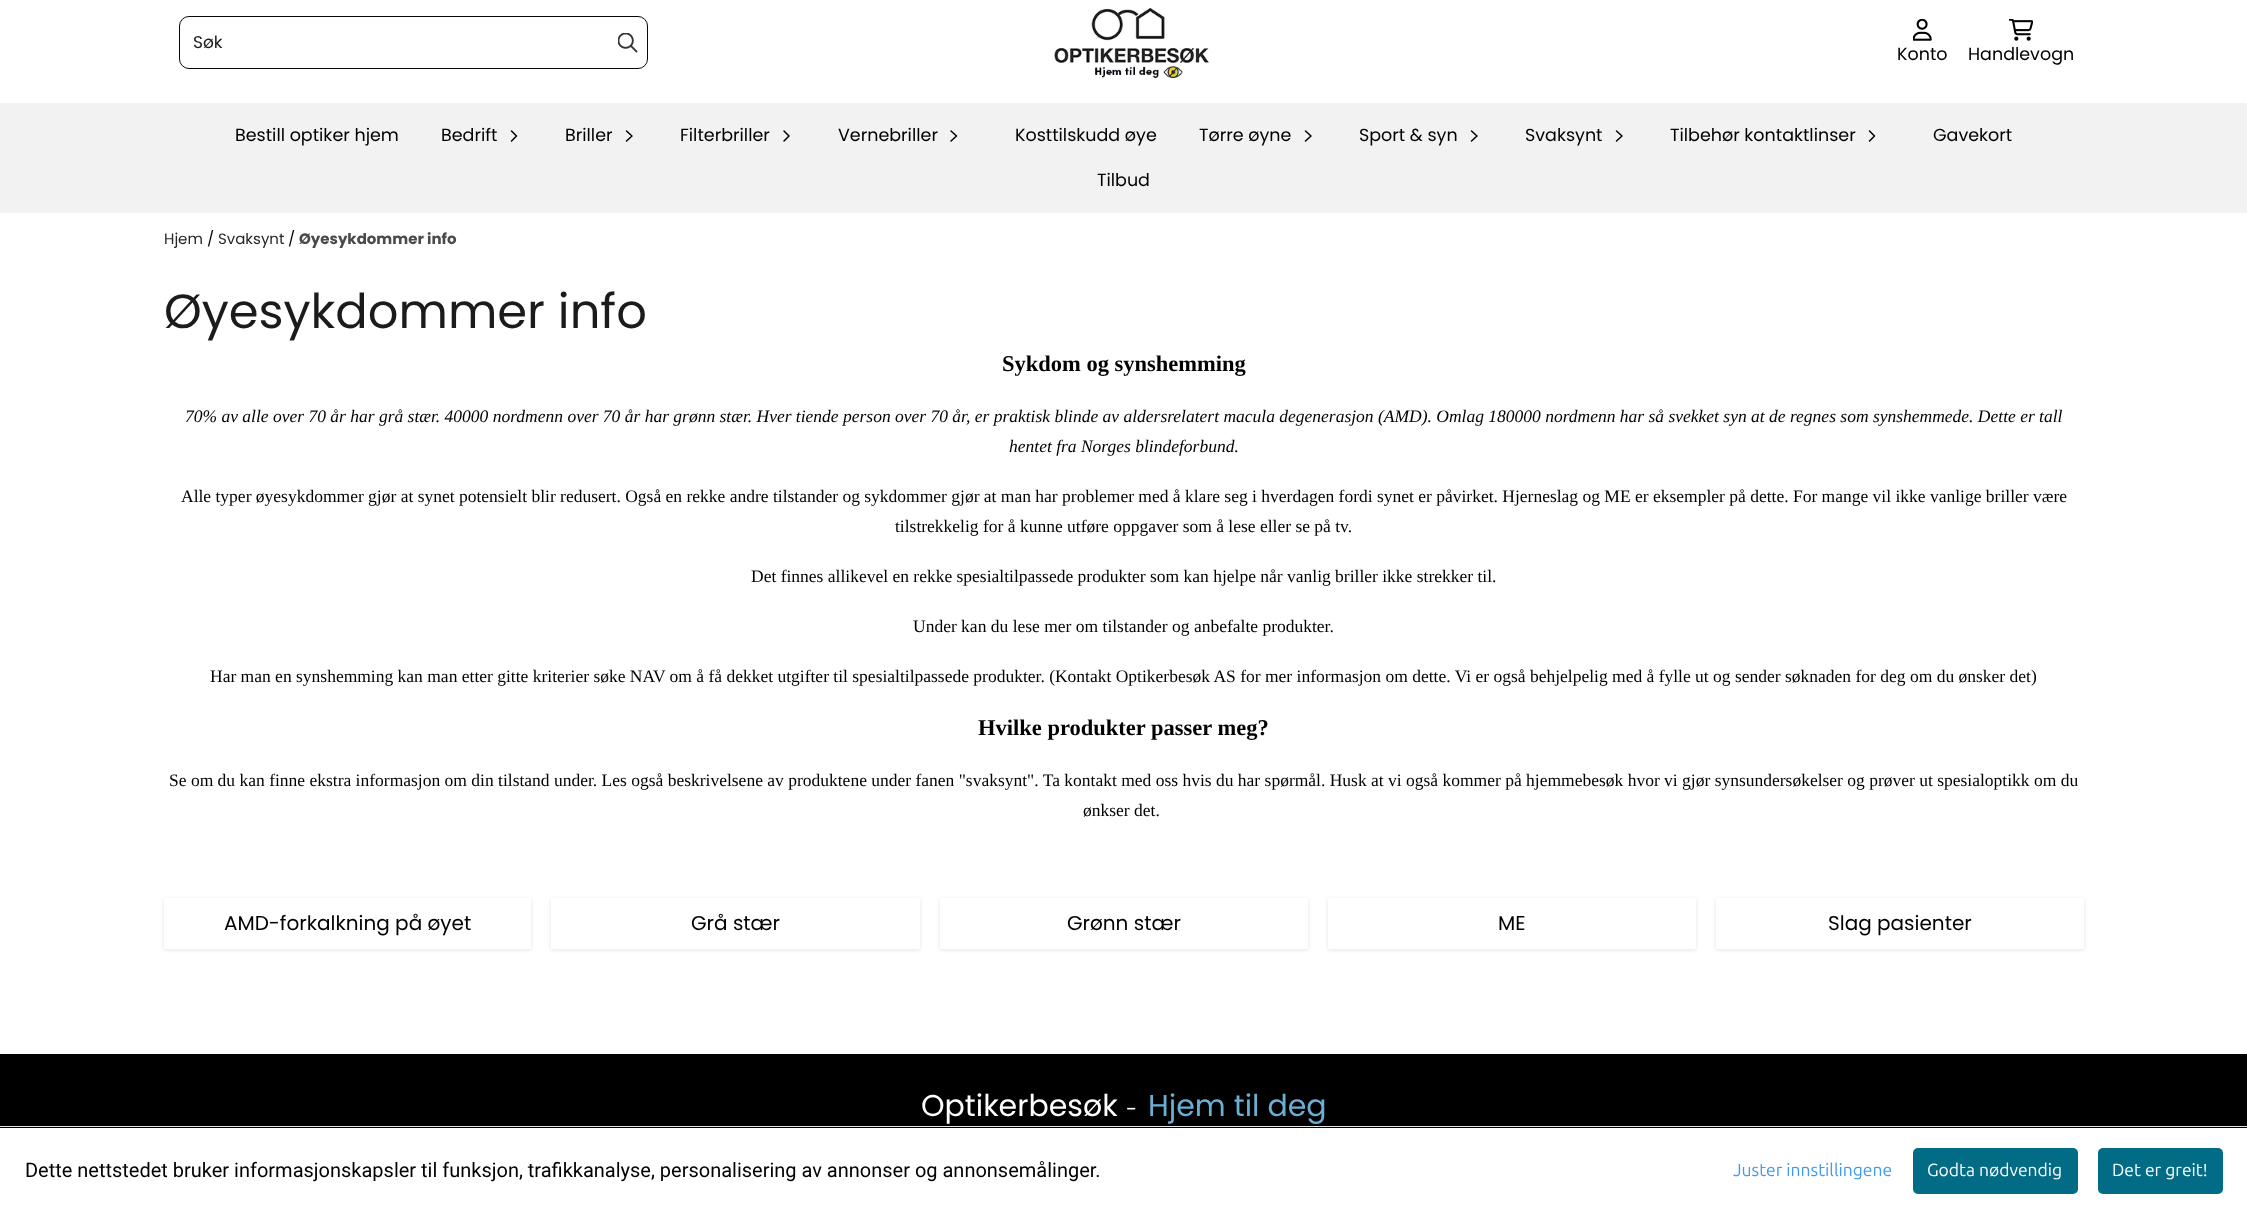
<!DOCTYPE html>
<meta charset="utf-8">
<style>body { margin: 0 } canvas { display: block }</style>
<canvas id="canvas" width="2247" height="1213"></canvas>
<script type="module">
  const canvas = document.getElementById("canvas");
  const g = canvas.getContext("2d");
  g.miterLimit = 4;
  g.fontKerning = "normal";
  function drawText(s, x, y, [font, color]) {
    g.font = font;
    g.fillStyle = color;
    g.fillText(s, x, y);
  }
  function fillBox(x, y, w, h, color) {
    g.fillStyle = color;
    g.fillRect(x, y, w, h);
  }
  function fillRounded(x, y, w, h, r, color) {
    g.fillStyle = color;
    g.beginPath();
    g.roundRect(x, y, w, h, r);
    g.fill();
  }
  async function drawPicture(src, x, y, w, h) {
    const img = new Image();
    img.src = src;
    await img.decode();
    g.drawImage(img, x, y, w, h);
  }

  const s1 = ["17px Poppins", "#1B1B1B"];
  const s2 = ["17.5px Poppins", "#000000"];
  const s3 = ["15px Poppins", "#262626"];
  const s4 = ["15px Poppins", "#000000"];
  const s5 = ["bold 15px Poppins", "#4A4A4A"];
  const s6 = ["48px Poppins", "#1B1B1B"];
  const s7 = ["bold 22.5px Liberation Serif", "#000000"];
  const s8 = ["italic 17.5px Liberation Serif", "#000000"];
  const s9 = ["17.5px Liberation Serif", "#000000"];
  const s10 = ["20px Poppins", "#000000"];
  const s11 = ["30px Poppins", "#FFFFFF"];
  const s12 = ["20px Poppins", "#FFFFFF"];
  const s13 = ["30px Poppins", "#68B0D4"];
  const s14 = ["20px Roboto", "#000000"];
  const s15 = ["17.5px Ubuntu", "#409AEF"];
  const s16 = ["17.5px Ubuntu", "#FFFFFF"];

  fillBox(0, 0, 2247, 1213, "#FFFFFF");
  g.beginPath();
  g.roundRect(179.5, 16.5, 468, 52, 9.5);
  g.strokeStyle = "#080808";
  g.stroke();
  drawText("Søk", 193, 48, s1);
  await drawPicture("pic1.png", 618, 33, 20, 20);
  await drawPicture("pic2.png", 1054, 7, 155, 72);
  await drawPicture("pic3.png", 1913, 19, 19, 22);
  drawText("Konto", 1897, 60, s2);
  await drawPicture("pic4.png", 2009, 19, 24, 22);
  drawText("Handlevogn", 1968, 60, s2);
  fillBox(0, 103, 2247, 110, "#F2F2F2");
  drawText("Bestill optiker hjem", 235, 141, s2);
  drawText("Bedrift", 441, 141, s2);
  g.beginPath();
  g.moveTo(511.5, 131);
  g.lineTo(516.5, 136);
  g.lineTo(511.5, 141);
  g.strokeStyle = "#000000";
  g.lineWidth = 1.5;
  g.lineCap = "round";
  g.lineJoin = "round";
  g.stroke();
  drawText("Briller", 565, 141, s2);
  g.beginPath();
  g.moveTo(626.5, 131);
  g.lineTo(632, 136);
  g.lineTo(626.5, 141);
  g.stroke();
  drawText("Filterbriller", 680, 141, s2);
  g.beginPath();
  g.moveTo(784, 131);
  g.lineTo(789, 136);
  g.lineTo(784, 141);
  g.stroke();
  drawText("Vernebriller", 838, 141, s2);
  g.beginPath();
  g.moveTo(951, 131);
  g.lineTo(956.5, 136);
  g.lineTo(951, 141);
  g.stroke();
  drawText("Kosttilskudd øye", 1015, 141, s2);
  drawText("Tørre øyne", 1199, 141, s2);
  g.beginPath();
  g.moveTo(1305.5, 131);
  g.lineTo(1311, 136);
  g.lineTo(1305.5, 141);
  g.stroke();
  drawText("Sport & syn", 1359, 141, s2);
  g.beginPath();
  g.moveTo(1471.5, 131);
  g.lineTo(1477, 136);
  g.lineTo(1471.5, 141);
  g.stroke();
  drawText("Svaksynt", 1525, 141, s2);
  g.beginPath();
  g.moveTo(1616.5, 131);
  g.lineTo(1622, 136);
  g.lineTo(1616.5, 141);
  g.stroke();
  drawText("Tilbehør kontaktlinser", 1670, 141, s2);
  g.beginPath();
  g.moveTo(1869.5, 131);
  g.lineTo(1874.5, 136);
  g.lineTo(1869.5, 141);
  g.stroke();
  drawText("Gavekort", 1933, 141, s2);
  drawText("Tilbud", 1097, 186, s2);
  drawText("Hjem", 164, 244, s3);
  drawText("/", 207, 244, s4);
  drawText("Svaksynt", 218, 244, s3);
  drawText("/", 288, 244, s4);
  drawText("Øyesykdommer info", 299, 244, s5);
  drawText("Øyesykdommer info", 164, 328, s6);
  drawText("Sykdom og synshemming", 1002, 371, s7);
  drawText("70% av alle over 70 år har grå stær. 40000 nordmenn over 70 år har grønn stær. Hver tiende person over 70 år, er praktisk blinde av aldersrelatert macula degenerasjon (AMD). Omlag 180000 nordmenn har så svekket syn at de regnes som synshemmede. Dette er tall", 185, 422, s8);
  drawText("hentet fra Norges blindeforbund.", 1009, 452, s8);
  drawText("Alle typer øyesykdommer gjør at synet potensielt blir redusert. Også en rekke andre tilstander og sykdommer gjør at man har problemer med å klare seg i hverdagen fordi synet er påvirket. Hjerneslag og ME er eksempler på dette. For mange vil ikke vanlige briller være", 181, 502, s9);
  drawText("tilstrekkelig for å kunne utføre oppgaver som å lese eller se på tv.", 895, 532, s9);
  drawText("Det finnes allikevel en rekke spesialtilpassede produkter som kan hjelpe når vanlig briller ikke strekker til.", 751, 582, s9);
  drawText("Under kan du lese mer om tilstander og anbefalte produkter.", 913, 632, s9);
  drawText("Har man en synshemming kan man etter gitte kriterier søke NAV om å få dekket utgifter til spesialtilpassede produkter. (Kontakt Optikerbesøk AS for mer informasjon om dette. Vi er også behjelpelig med å fylle ut og sender søknaden for deg om du ønsker det)", 210, 682, s9);
  drawText("Hvilke produkter passer meg?", 978, 735, s7);
  drawText("Se om du kan finne ekstra informasjon om din tilstand under. Les også beskrivelsene av produktene under fanen \"svaksynt\". Ta kontakt med oss hvis du har spørmål. Husk at vi også kommer på hjemmebesøk hvor vi gjør synsundersøkelser og prøver ut spesialoptikk om du", 169, 786, s9);
  drawText("ønkser det.", 1083, 816, s9);
  g.save();
  g.beginPath();
  g.moveTo(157, 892);
  g.lineTo(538, 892);
  g.lineTo(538, 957);
  g.lineTo(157, 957);
  g.closePath();
  g.moveTo(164, 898);
  g.lineTo(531, 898);
  g.lineTo(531, 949);
  g.lineTo(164, 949);
  g.closePath();
  g.clip("evenodd");
  g.fillStyle = "rgba(0, 0, 0, 0.1)";
  g.filter = "blur(2px)";
  g.beginPath();
  g.rect(164, 899, 367, 51);
  g.fill();
  g.filter = "none";
  g.restore();
  drawText("AMD-forkalkning på øyet", 224, 930, s10);
  g.save();
  g.beginPath();
  g.moveTo(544, 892);
  g.lineTo(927, 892);
  g.lineTo(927, 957);
  g.lineTo(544, 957);
  g.closePath();
  g.moveTo(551, 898);
  g.lineTo(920, 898);
  g.lineTo(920, 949);
  g.lineTo(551, 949);
  g.closePath();
  g.clip("evenodd");
  g.fillStyle = "rgba(0, 0, 0, 0.1)";
  g.filter = "blur(2px)";
  g.beginPath();
  g.rect(551, 899, 369, 51);
  g.fill();
  g.filter = "none";
  g.restore();
  drawText("Grå stær", 691, 930, s10);
  g.save();
  g.beginPath();
  g.moveTo(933, 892);
  g.lineTo(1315, 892);
  g.lineTo(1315, 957);
  g.lineTo(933, 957);
  g.closePath();
  g.moveTo(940, 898);
  g.lineTo(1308, 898);
  g.lineTo(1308, 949);
  g.lineTo(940, 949);
  g.closePath();
  g.clip("evenodd");
  g.fillStyle = "rgba(0, 0, 0, 0.1)";
  g.filter = "blur(2px)";
  g.beginPath();
  g.rect(940, 899, 368, 51);
  g.fill();
  g.filter = "none";
  g.restore();
  drawText("Grønn stær", 1067, 930, s10);
  g.save();
  g.beginPath();
  g.moveTo(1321, 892);
  g.lineTo(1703, 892);
  g.lineTo(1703, 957);
  g.lineTo(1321, 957);
  g.closePath();
  g.moveTo(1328, 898);
  g.lineTo(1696, 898);
  g.lineTo(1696, 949);
  g.lineTo(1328, 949);
  g.closePath();
  g.clip("evenodd");
  g.fillStyle = "rgba(0, 0, 0, 0.1)";
  g.filter = "blur(2px)";
  g.beginPath();
  g.rect(1328, 899, 368, 51);
  g.fill();
  g.filter = "none";
  g.restore();
  drawText("ME", 1498, 930, s10);
  g.save();
  g.beginPath();
  g.moveTo(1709, 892);
  g.lineTo(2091, 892);
  g.lineTo(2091, 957);
  g.lineTo(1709, 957);
  g.closePath();
  g.moveTo(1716, 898);
  g.lineTo(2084, 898);
  g.lineTo(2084, 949);
  g.lineTo(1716, 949);
  g.closePath();
  g.clip("evenodd");
  g.fillStyle = "rgba(0, 0, 0, 0.1)";
  g.filter = "blur(2px)";
  g.beginPath();
  g.rect(1716, 899, 368, 51);
  g.fill();
  g.filter = "none";
  g.restore();
  drawText("Slag pasienter", 1828, 930, s10);
  fillBox(0, 1054, 2247, 74, "#000000");
  drawText("Optikerbesøk", 921, 1116, s11);
  drawText("-", 1126, 1116, s12);
  drawText("Hjem til deg", 1148, 1116, s13);
  fillBox(0, 1126, 2247, 1, "#E5E7EB");
  drawText("Dette nettstedet bruker informasjonskapsler til funksjon, trafikkanalyse, personalisering av annonser og annonsemålinger.", 25, 1177, s14);
  drawText("Juster innstillingene", 1733, 1176, s15);
  fillRounded(1913, 1148, 165, 46, 5, "#026B85");
  drawText("Godta nødvendig", 1927, 1176, s16);
  fillRounded(2098, 1148, 125, 46, 5, "#026B85");
  drawText("Det er greit!", 2112, 1176, s16);
</script>
